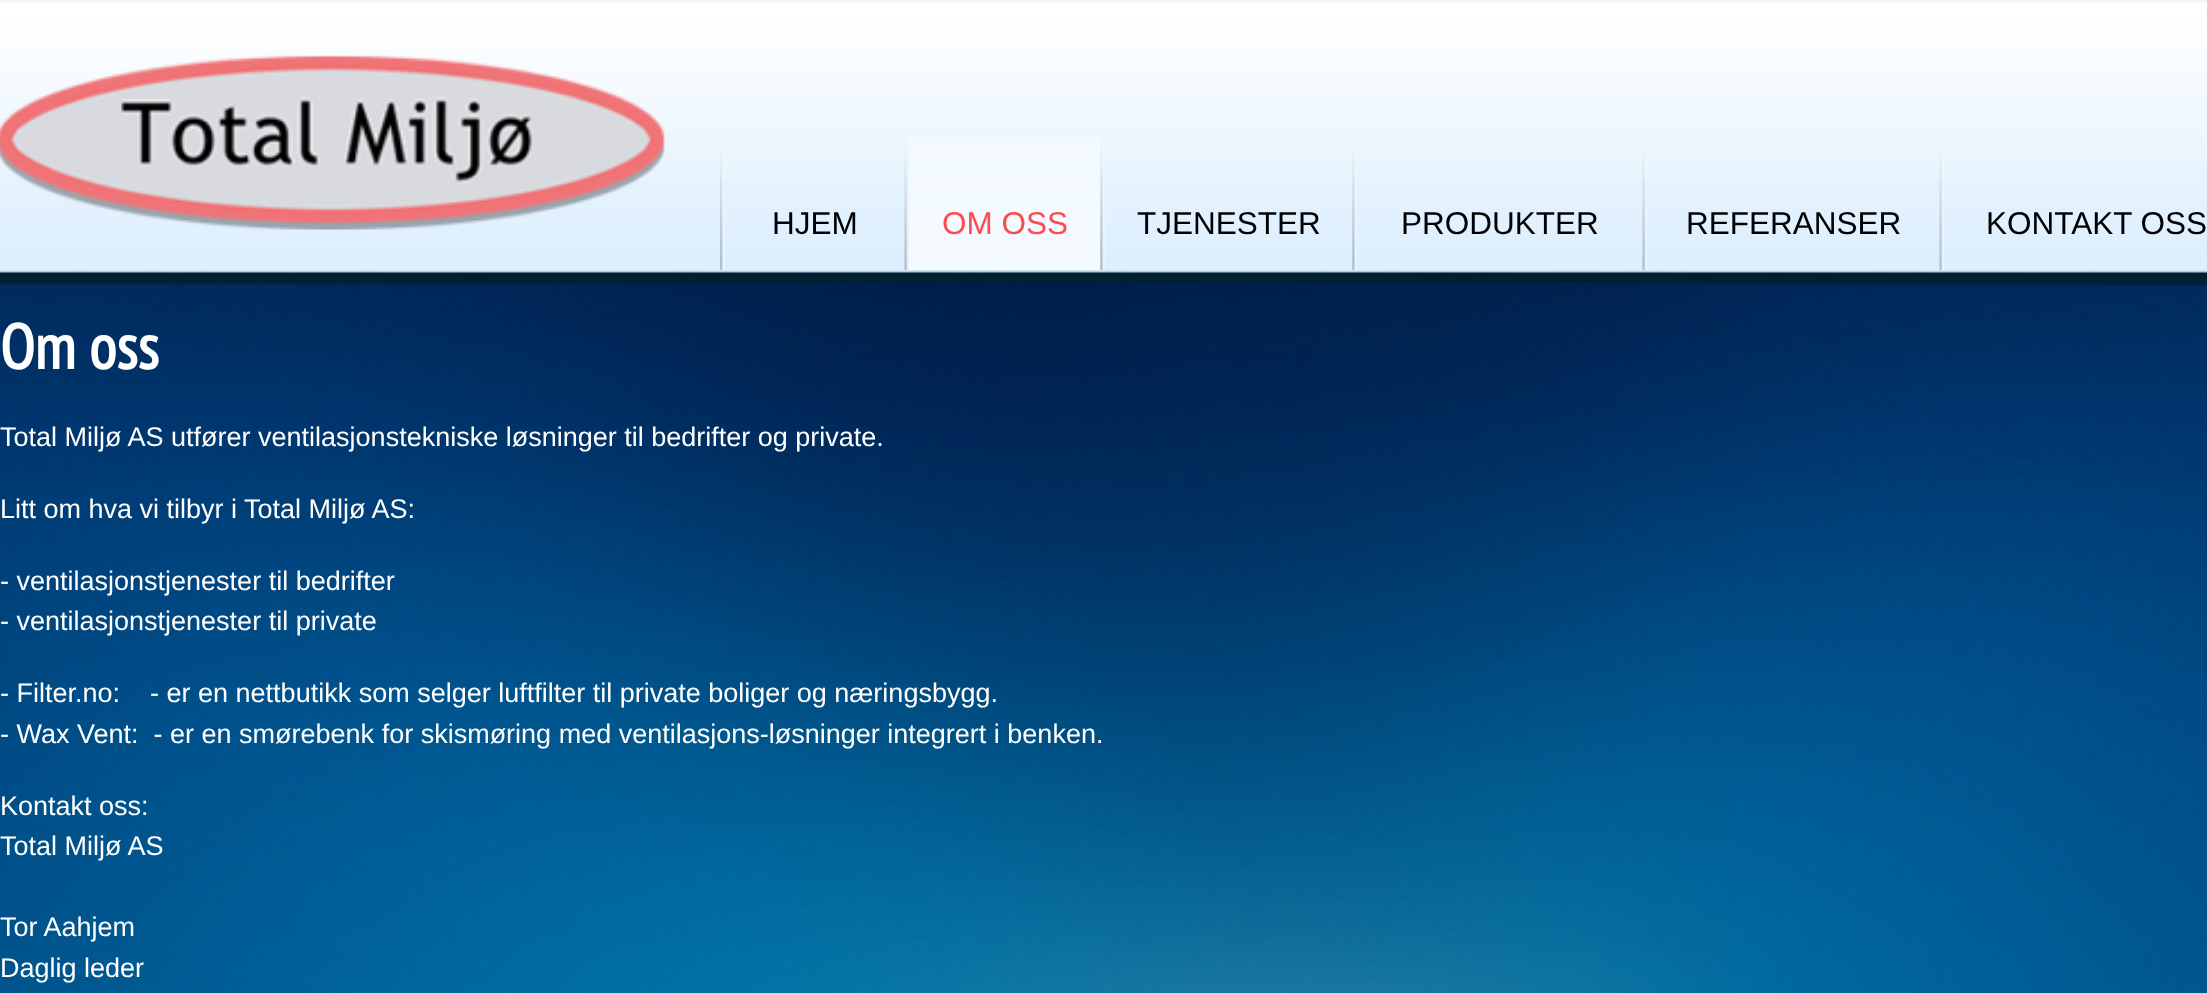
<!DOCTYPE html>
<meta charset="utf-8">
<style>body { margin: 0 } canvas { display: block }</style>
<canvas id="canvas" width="2207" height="993"></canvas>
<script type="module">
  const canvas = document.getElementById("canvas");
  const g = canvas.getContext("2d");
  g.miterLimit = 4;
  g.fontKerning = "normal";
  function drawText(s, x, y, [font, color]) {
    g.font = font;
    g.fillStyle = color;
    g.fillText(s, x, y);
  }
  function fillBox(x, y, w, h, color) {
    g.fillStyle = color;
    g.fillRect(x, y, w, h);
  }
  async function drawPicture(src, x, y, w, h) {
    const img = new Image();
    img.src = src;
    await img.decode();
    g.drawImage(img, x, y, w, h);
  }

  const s1 = ["31.5px Liberation Sans", "#000000"];
  const s2 = ["31.5px Liberation Sans", "#FC4C50"];
  const s3 = ["bold 63px PT Sans Narrow", "#FFFFFF"];
  const s4 = ["27px Liberation Sans", "#FFFFFF"];

  fillBox(0, 0, 2207, 993, "#FFFFFF");
  await drawPicture("pic1.png", 0, 0, 2207, 993);
  await drawPicture("pic2.png", 0, 55, 665, 175);
  await drawPicture("pic3.png", 720, 148, 5, 122);
  drawText("HJEM", 772, 234, s1);
  await drawPicture("pic4.png", 904, 148, 5, 122);
  await drawPicture("pic5.png", 909, 136, 192, 134);
  drawText("OM OSS", 942, 234, s2);
  await drawPicture("pic6.png", 1100, 148, 5, 122);
  drawText("TJENESTER", 1137, 234, s1);
  await drawPicture("pic7.png", 1352, 148, 5, 122);
  drawText("PRODUKTER", 1401, 234, s1);
  await drawPicture("pic4.png", 1642, 148, 5, 122);
  drawText("REFERANSER", 1686, 234, s1);
  await drawPicture("pic4.png", 1939, 148, 5, 122);
  drawText("KONTAKT OSS", 1986, 234, s1);
  drawText("Om oss", 0, 369, s3);
  drawText("Total Miljø AS utfører ventilasjonstekniske løsninger til bedrifter og private.", 0, 446, s4);
  drawText("Litt om hva vi tilbyr i Total Miljø AS:", 0, 518, s4);
  drawText("- ventilasjonstjenester til bedrifter", 0, 590, s4);
  drawText("- ventilasjonstjenester til private", 0, 630, s4);
  drawText("- Filter.no:    - er en nettbutikk som selger luftfilter til private boliger og næringsbygg.", 0, 702, s4);
  drawText("- Wax Vent:  - er en smørebenk for skismøring med ventilasjons-løsninger integrert i benken.", 0, 743, s4);
  drawText("Kontakt oss:", 0, 815, s4);
  drawText("Total Miljø AS", 0, 855, s4);
  drawText("Tor Aahjem", 0, 936, s4);
  drawText("Daglig leder", 0, 977, s4);
</script>
